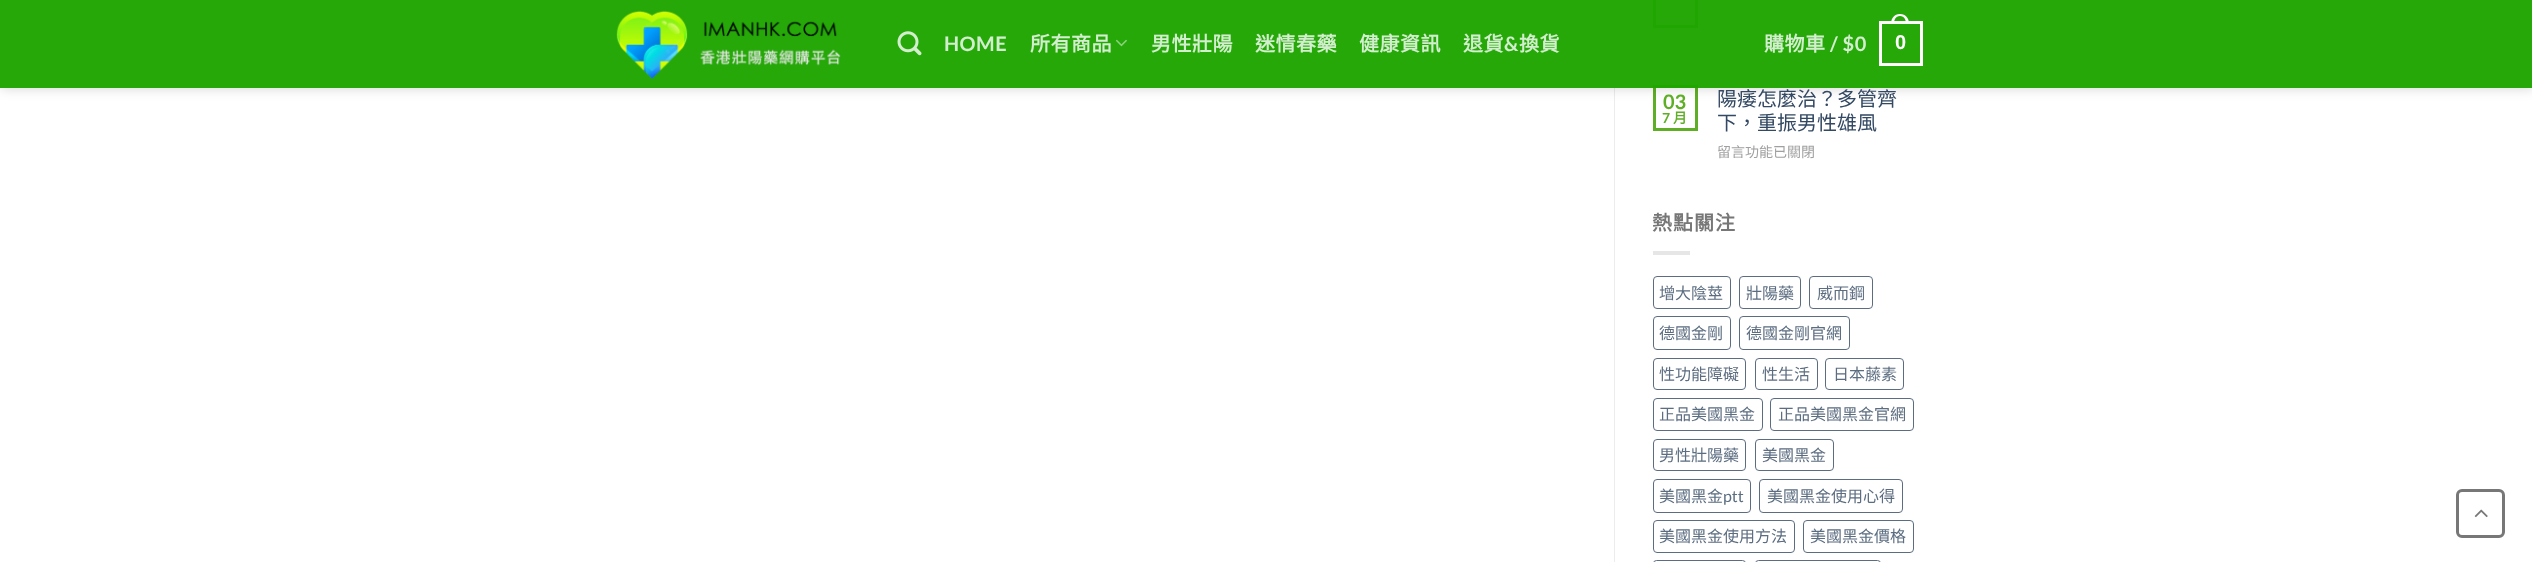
<!DOCTYPE html>
<meta charset="utf-8">
<style>body { margin: 0 } canvas { display: block }</style>
<canvas id="canvas" width="2532" height="562"></canvas>
<script type="module">
  const canvas = document.getElementById("canvas");
  const g = canvas.getContext("2d");
  g.miterLimit = 4;
  g.fontKerning = "normal";
  function drawText(s, x, y, [font, color]) {
    g.font = font;
    g.fillStyle = color;
    g.fillText(s, x, y);
  }
  function fillBox(x, y, w, h, color) {
    g.fillStyle = color;
    g.fillRect(x, y, w, h);
  }
  async function drawPicture(src, x, y, w, h) {
    const img = new Image();
    img.src = src;
    await img.decode();
    g.drawImage(img, x, y, w, h);
  }

  const s1 = ["bold 20px Lato", "#D3EECE"];
  const s2 = ["bold 20px Noto Sans CJK HK", "#D3EECE"];
  const s3 = ["bold 20px Liberation Sans", "#FFFFFF"];
  const s4 = ["bold 20px Lato", "#5FAF26"];
  const s5 = ["bold 14px Lato", "#5FAF26"];
  const s6 = ["bold 14px Noto Sans CJK HK", "#5FAF26"];
  const s7 = ["20px Noto Sans CJK HK", "#334862"];
  const s8 = ["14px Noto Sans CJK HK", "#A0A0A0"];
  const s9 = ["bold 20px Noto Sans CJK HK", "#777777"];
  const s10 = ["16px Noto Sans CJK HK", "#5C6D81"];
  const s11 = ["16px Lato", "#5C6D81"];

  fillBox(0, 0, 2532, 562, "#FFFFFF");
  fillBox(1614, 0, 1, 562, "#ECECEC");
  g.strokeStyle = "#5FAF26";
  g.lineWidth = 3;
  g.strokeRect(1654.5, -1.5, 42, 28);
  fillBox(1653, 71, 270, 1, "#ECECEC");
  g.strokeRect(1654.5, 86.5, 42, 43);
  g.save();
  g.beginPath();
  g.moveTo(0, 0);
  g.lineTo(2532, 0);
  g.lineTo(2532, 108);
  g.lineTo(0, 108);
  g.closePath();
  g.moveTo(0, 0);
  g.lineTo(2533, 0);
  g.lineTo(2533, 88);
  g.lineTo(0, 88);
  g.closePath();
  g.clip("evenodd");
  g.fillStyle = "rgba(0, 0, 0, 0.15)";
  g.filter = "blur(6px)";
  g.beginPath();
  g.rect(1, 1, 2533, 88);
  g.fill();
  g.filter = "none";
  g.restore();
  fillBox(0, 0, 2532, 88, "rgba(30, 165, 0, 0.97)");
  await drawPicture("pic1.png", 616, 10, 225, 69);
  await drawPicture("pic2.png", 897, 31, 25, 25);
  g.letterSpacing = "0.5px";
  drawText("HOME", 944, 51, s1);
  drawText("所有商品", 1030, 51, s2);
  await drawPicture("pic3.png", 1116, 39, 11, 8);
  drawText("男性壯陽", 1151, 51, s2);
  drawText("迷情春藥", 1255, 51, s2);
  drawText("健康資訊", 1359, 51, s2);
  drawText("退貨", 1463, 51, s2);
  drawText("&", 1504, 51, s1);
  drawText("換貨", 1519, 51, s2);
  drawText("購物車", 1764, 51, s2);
  drawText("/ $0", 1830, 51, s1);
  g.strokeStyle = "#FFFFFF";
  g.strokeRect(1880.5, 22.5, 41, 42);
  g.fillStyle = "#FFFFFF";
  g.beginPath();
  g.moveTo(1900, 14);
  g.bezierCurveTo(1906, 14, 1909, 18.5, 1909, 24);
  g.lineTo(1891, 24);
  g.bezierCurveTo(1891, 18.5, 1894, 14, 1900, 14);
  g.closePath();
  g.moveTo(1900, 16);
  g.bezierCurveTo(1904.5, 16, 1906, 20, 1906, 24);
  g.lineTo(1894, 24);
  g.bezierCurveTo(1894, 20, 1895.5, 16, 1900, 16);
  g.closePath();
  g.fill("evenodd");
  drawText("0", 1895, 49, s3);
  g.letterSpacing = "0px";
  drawText("03", 1663, 109, s4);
  drawText("7", 1662, 123, s5);
  drawText("月", 1673, 123, s6);
  drawText("陽痿怎麼治？多管齊", 1717, 106, s7);
  drawText("下，重振男性雄風", 1717, 130, s7);
  drawText("留言功能已關閉", 1717, 157, s8);
  g.letterSpacing = "1px";
  drawText("熱點關注", 1652, 230, s9);
  fillBox(1653, 251, 37, 4, "#E6E6E6");
  g.beginPath();
  g.roundRect(1653.5, 276.5, 77, 32, 3.5);
  g.strokeStyle = "#5C6D81";
  g.lineWidth = 1;
  g.stroke();
  g.letterSpacing = "0px";
  drawText("增大陰莖", 1659, 299, s10);
  g.beginPath();
  g.roundRect(1739.5, 276.5, 61, 32, 3.5);
  g.stroke();
  drawText("壯陽藥", 1746, 299, s10);
  g.beginPath();
  g.roundRect(1809.5, 276.5, 63, 32, 3.5);
  g.stroke();
  drawText("威而鋼", 1817, 299, s10);
  g.beginPath();
  g.roundRect(1653.5, 316.5, 77, 33, 3.5);
  g.stroke();
  drawText("德國金剛", 1659, 339, s10);
  g.beginPath();
  g.roundRect(1739.5, 316.5, 110, 33, 3.5);
  g.stroke();
  drawText("德國金剛官網", 1746, 339, s10);
  g.beginPath();
  g.roundRect(1653.5, 358.5, 92, 31, 3.5);
  g.stroke();
  drawText("性功能障礙", 1659, 380, s10);
  g.beginPath();
  g.roundRect(1755.5, 358.5, 62, 31, 3.5);
  g.stroke();
  drawText("性生活", 1762, 380, s10);
  g.beginPath();
  g.roundRect(1825.5, 358.5, 78, 31, 3.5);
  g.stroke();
  drawText("日本藤素", 1833, 380, s10);
  g.beginPath();
  g.roundRect(1653.5, 398.5, 109, 32, 3.5);
  g.stroke();
  drawText("正品美國黑金", 1659, 420, s10);
  g.beginPath();
  g.roundRect(1770.5, 398.5, 143, 32, 3.5);
  g.stroke();
  drawText("正品美國黑金官網", 1778, 420, s10);
  g.beginPath();
  g.roundRect(1653.5, 439.5, 92, 31, 3.5);
  g.stroke();
  drawText("男性壯陽藥", 1659, 461, s10);
  g.beginPath();
  g.roundRect(1755.5, 439.5, 78, 31, 3.5);
  g.stroke();
  drawText("美國黑金", 1762, 461, s10);
  g.beginPath();
  g.roundRect(1653.5, 479.5, 97, 33, 3.5);
  g.stroke();
  drawText("美國黑金", 1659, 502, s10);
  drawText("ptt", 1723, 502, s11);
  g.beginPath();
  g.roundRect(1759.5, 479.5, 143, 33, 3.5);
  g.stroke();
  drawText("美國黑金使用心得", 1767, 502, s10);
  g.beginPath();
  g.roundRect(1653.5, 520.5, 141, 32, 3.5);
  g.stroke();
  drawText("美國黑金使用方法", 1659, 542, s10);
  g.beginPath();
  g.roundRect(1803.5, 520.5, 110, 32, 3.5);
  g.stroke();
  drawText("美國黑金價格", 1810, 542, s10);
  g.beginPath();
  g.roundRect(1653.5, 560.5, 92, 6, 3.5);
  g.stroke();
  g.beginPath();
  g.roundRect(1755.5, 560.5, 125, 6, 3.5);
  g.stroke();
  g.beginPath();
  g.roundRect(2457.5, 490.5, 46, 46, 4.5);
  g.strokeStyle = "#777777";
  g.lineWidth = 3;
  g.stroke();
  await drawPicture("pic4.png", 2474, 509, 14, 9);
</script>
